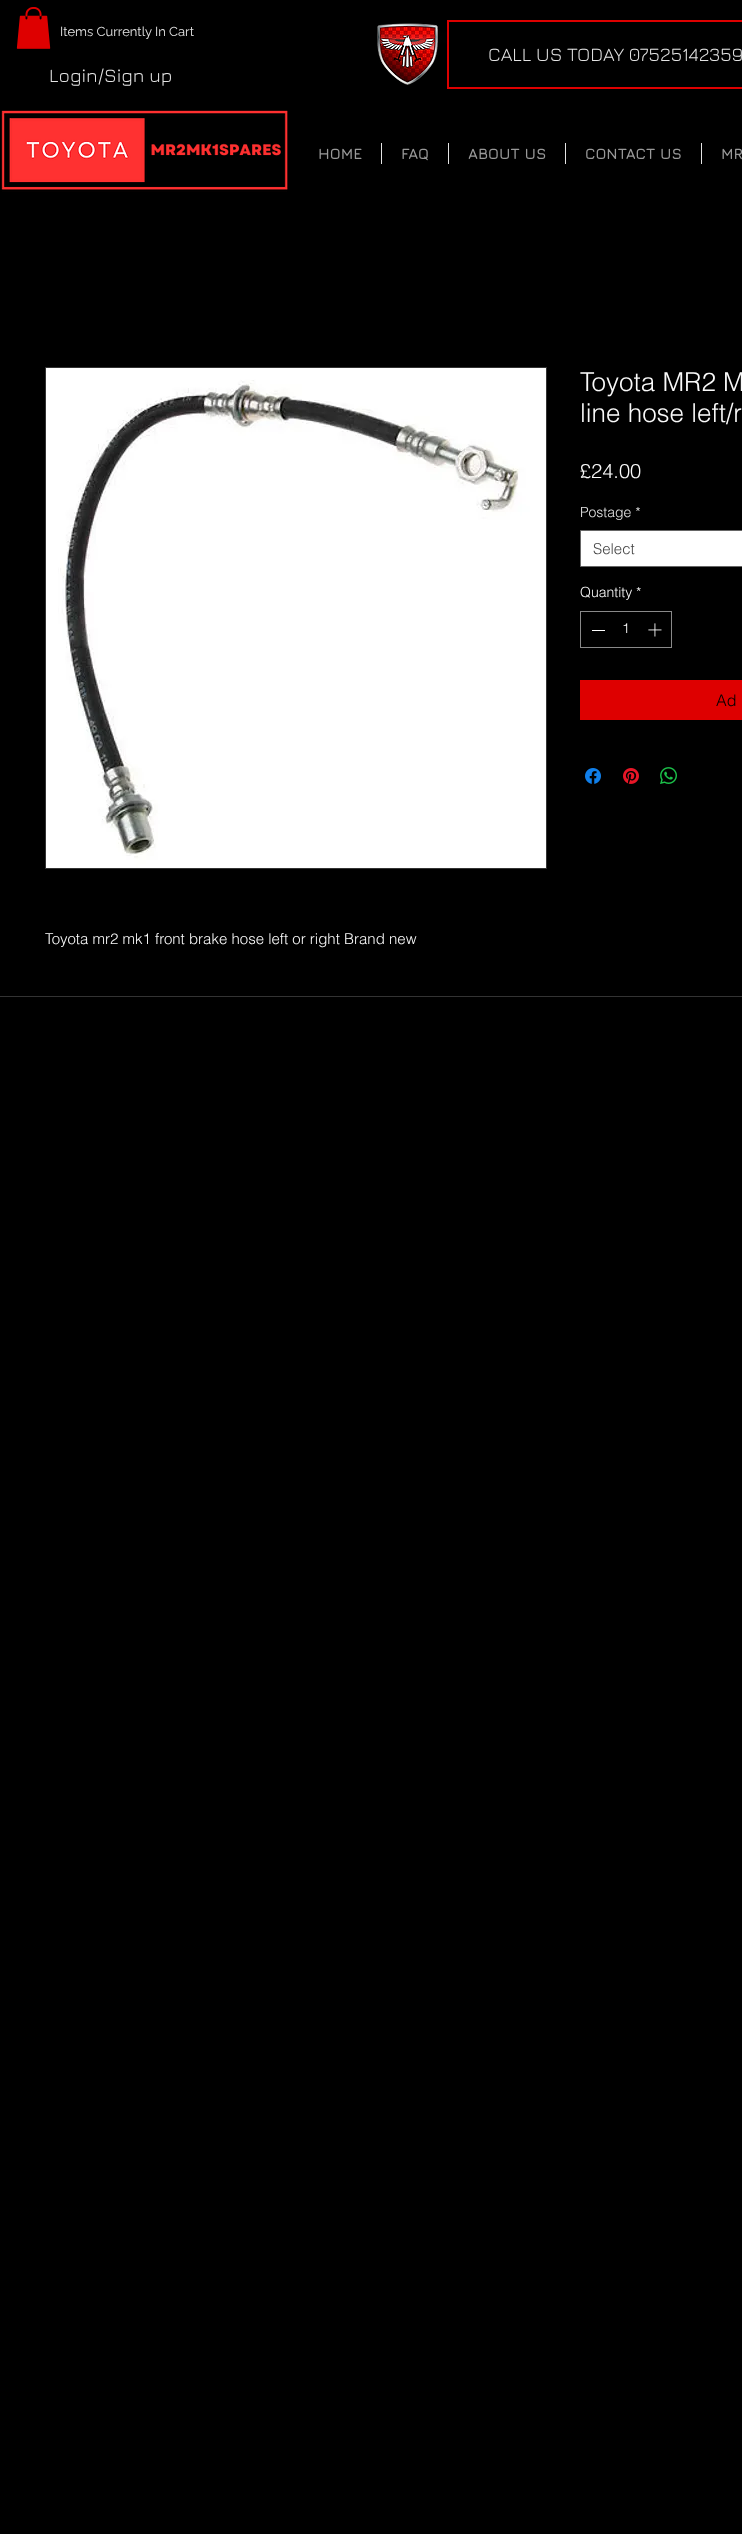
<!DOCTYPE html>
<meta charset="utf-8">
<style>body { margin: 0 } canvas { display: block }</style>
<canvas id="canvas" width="742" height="2534"></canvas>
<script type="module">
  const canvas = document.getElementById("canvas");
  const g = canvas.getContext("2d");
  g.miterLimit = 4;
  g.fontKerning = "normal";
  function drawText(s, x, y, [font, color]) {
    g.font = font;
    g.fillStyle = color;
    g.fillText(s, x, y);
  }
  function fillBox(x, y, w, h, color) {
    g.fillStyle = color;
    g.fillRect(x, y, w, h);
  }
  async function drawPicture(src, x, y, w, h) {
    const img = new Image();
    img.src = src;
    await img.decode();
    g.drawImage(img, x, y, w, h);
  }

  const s1 = ["13px Raleway", "#E4E4E4"];
  const s2 = ["19px Jura", "#E4E4E4"];
  const s3 = ["bold 15px Jura", "#999999"];
  const s4 = ["300 26px helvetica", "#FAFAFA"];
  const s5 = ["300 20px helvetica", "#FAFAFA"];
  const s6 = ["300 14px helvetica", "#E4E4E4"];
  const s7 = ["300 15px helvetica", "#444444"];
  const s8 = ["300 14px helvetica", "#FAFAFA"];
  const s9 = ["300 16px helvetica", "#000000"];
  const s10 = ["300 15px helvetica", "#FAFAFA"];

  fillBox(0, 0, 742, 2534, "#000000");
  await drawPicture("pic1.png", 16, 7, 35, 42);
  drawText("Items Currently In Cart", 60, 36, s1);
  g.strokeStyle = "#DE0000";
  g.lineWidth = 2;
  g.strokeRect(448, 21, 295, 67);
  await drawPicture("pic2.png", 377, 23, 72, 62);
  drawText("CALL US TODAY 07525142359", 488, 61, s2);
  drawText("Login/Sign up", 49, 82, s2);
  await drawPicture("pic3.png", 1, 110, 287, 82);
  drawText("HOME", 318, 159, s3);
  fillBox(381, 143, 1, 21, "#E4E4E4");
  drawText("FAQ", 401, 159, s3);
  fillBox(448, 143, 1, 21, "#E4E4E4");
  drawText("ABOUT US", 468, 159, s3);
  fillBox(565, 143, 1, 21, "#E4E4E4");
  drawText("CONTACT US", 585, 159, s3);
  fillBox(701, 143, 1, 21, "#E4E4E4");
  drawText("MR", 721, 159, s3);
  drawText("Toyota MR2 M", 580, 391, s4);
  drawText("line hose left/r", 580, 422, s4);
  drawText("£24.00", 580, 478, s5);
  drawText("Postage *", 580, 517, s6);
  g.fillStyle = "#FFFFFF";
  g.beginPath();
  g.rect(580.5, 530.5, 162, 36);
  g.fill();
  g.strokeStyle = "#666666";
  g.lineWidth = 1;
  g.stroke();
  drawText("Select", 593, 554, s7);
  drawText("Quantity *", 580, 597, s8);
  g.strokeStyle = "#898989";
  g.strokeRect(580.5, 611.5, 91, 36);
  fillBox(592, 630, 13, 1, "#FFFFFF");
  drawText("1", 622, 633, s8);
  await drawPicture("pic4.png", 648, 623, 14, 14);
  fillBox(580, 680, 162, 40, "#DE0000");
  drawText("Ad", 716, 706, s9);
  await drawPicture("pic5.png", 585, 768, 16, 16);
  await drawPicture("pic6.png", 623, 768, 16, 16);
  await drawPicture("pic7.png", 660, 767, 17, 17);
  g.strokeStyle = "#333333";
  g.strokeRect(45.5, 367.5, 501, 501);
  await drawPicture("pic8.png", 46, 368, 500, 500);
  drawText("Toyota mr2 mk1 front brake hose left or right Brand new", 45, 944, s10);
  fillBox(0, 996, 742, 1, "#333333");
</script>
